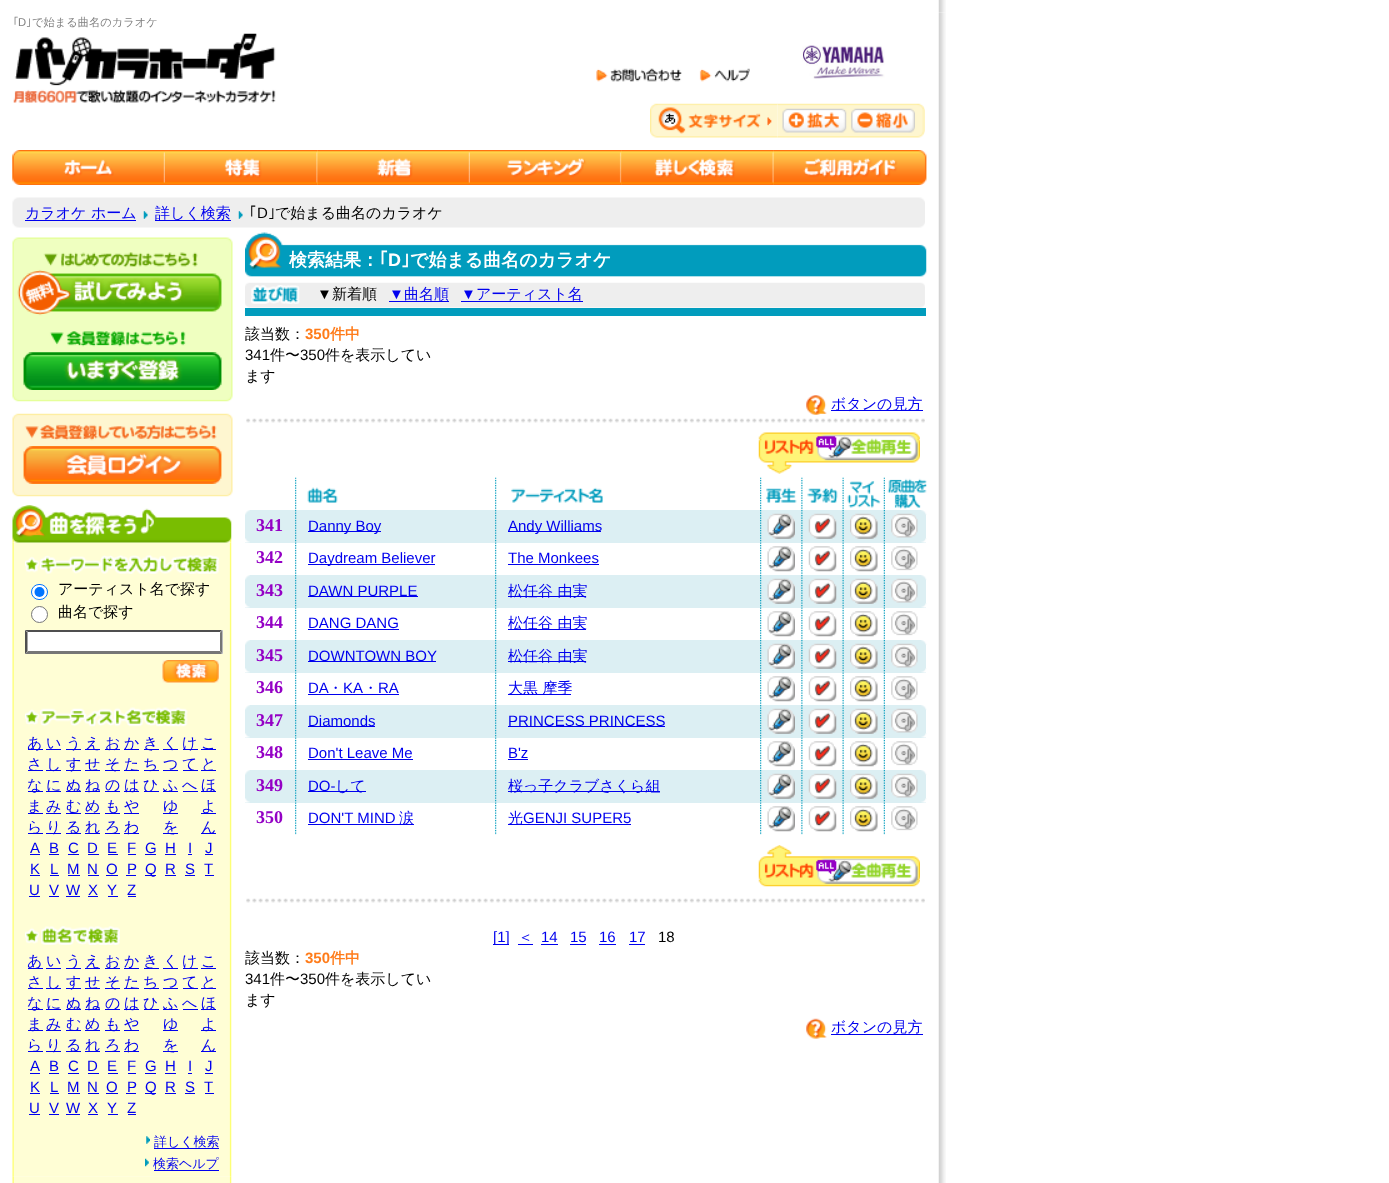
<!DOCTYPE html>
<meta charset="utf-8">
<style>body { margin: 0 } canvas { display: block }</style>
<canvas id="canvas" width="1389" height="1183"></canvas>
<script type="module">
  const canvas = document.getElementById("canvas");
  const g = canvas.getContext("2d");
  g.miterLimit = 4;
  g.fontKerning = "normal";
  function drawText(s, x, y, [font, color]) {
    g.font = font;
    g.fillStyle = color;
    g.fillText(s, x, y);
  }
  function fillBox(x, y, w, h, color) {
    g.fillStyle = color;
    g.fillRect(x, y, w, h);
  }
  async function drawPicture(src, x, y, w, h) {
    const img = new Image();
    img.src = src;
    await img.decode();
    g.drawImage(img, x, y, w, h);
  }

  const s1 = ["11.25px IPAPGothic", "#808080"];
  const s2 = ["11.25px Liberation Sans", "#808080"];
  const s3 = ["500 11.25px WenQuanYi Zen Hei", "#808080"];
  const s4 = ["500 15px WenQuanYi Zen Hei", "#0000EE"];
  const s5 = ["15px IPAPGothic", "#000000"];
  const s6 = ["15px Liberation Sans", "#000000"];
  const s7 = ["500 15px WenQuanYi Zen Hei", "#000000"];
  const s8 = ["15px Liberation Sans", "#0000EE"];
  const s9 = ["500 13px WenQuanYi Zen Hei", "#0000EE"];
  const s10 = ["bold 18px WenQuanYi Zen Hei", "#FFFFFF"];
  const s11 = ["bold 18px IPAPGothic", "#FFFFFF"];
  const s12 = ["bold 18px Liberation Sans", "#FFFFFF"];
  const s13 = ["bold 15px Liberation Sans", "#FF7C1A"];
  const s14 = ["bold 15px WenQuanYi Zen Hei", "#FF7C1A"];
  const s15 = ["bold 18px Liberation Serif", "#9400C5"];

  fillBox(0, 0, 1389, 1183, "#FFFFFF");
  await drawPicture("pic1.png", 938, 0, 8, 13);
  await drawPicture("pic2.png", 938, 12, 8, 1171);
  drawText("｢", 13, 26, s1);
  drawText("D", 18, 26, s2);
  drawText("｣", 26, 26, s1);
  drawText("で始まる曲名のカラオケ", 32, 26, s3);
  await drawPicture("pic3.png", 13, 33, 263, 70);
  await drawPicture("pic4.png", 596, 68, 86, 14);
  await drawPicture("pic5.png", 699, 68, 51, 14);
  await drawPicture("pic6.png", 802, 45, 83, 34);
  await drawPicture("pic7.png", 777, 103, 148, 35);
  await drawPicture("pic8.png", 650, 103, 128, 35);
  await drawPicture("pic9.png", 782, 108, 65, 25);
  await drawPicture("pic10.png", 851, 108, 64, 25);
  await drawPicture("pic11.png", 12, 150, 1, 35);
  await drawPicture("pic12.png", 12, 150, 153, 35);
  await drawPicture("pic13.png", 317, 150, 1, 35);
  await drawPicture("pic14.png", 165, 150, 153, 35);
  await drawPicture("pic15.png", 317, 150, 1, 35);
  await drawPicture("pic16.png", 317, 150, 153, 35);
  await drawPicture("pic17.png", 621, 150, 1, 35);
  await drawPicture("pic18.png", 470, 150, 152, 35);
  await drawPicture("pic19.png", 621, 150, 153, 35);
  await drawPicture("pic20.png", 621, 150, 153, 35);
  await drawPicture("pic21.png", 773, 150, 154, 35);
  await drawPicture("pic22.png", 773, 150, 154, 35);
  await drawPicture("pic23.png", 12, 197, 913, 31);
  drawText("カラオケ ホーム", 25, 218, s4);
  fillBox(25, 220, 111, 1, "#0000EE");
  await drawPicture("pic24.png", 143, 211, 5, 8);
  fillBox(155, 220, 76, 1, "#0000EE");
  drawText("詳しく検索", 155, 218, s4);
  await drawPicture("pic24.png", 238, 211, 5, 8);
  drawText("｢", 249, 218, s5);
  drawText("D", 257, 218, s6);
  drawText("｣", 268, 218, s5);
  drawText("で始まる曲名のカラオケ", 275, 218, s7);
  await drawPicture("pic25.png", 12, 237, 221, 165);
  await drawPicture("pic26.png", 23, 273, 199, 39);
  await drawPicture("pic27.png", 23, 273, 199, 39);
  await drawPicture("pic28.png", 23, 352, 199, 38);
  await drawPicture("pic29.png", 23, 352, 199, 38);
  await drawPicture("pic30.png", 12, 413, 221, 84);
  await drawPicture("pic31.png", 23, 446, 199, 38);
  await drawPicture("pic32.png", 23, 446, 199, 38);
  await drawPicture("pic34.png", 12, 542, 220, 635);
  await drawPicture("pic33.png", 12, 505, 220, 38);
  await drawPicture("pic35.png", 25, 555, 194, 19);
  g.fillStyle = "#FFFFFF";
  g.beginPath();
  g.roundRect(31.5, 584.5, 16, 15, 7.5);
  g.fill();
  g.strokeStyle = "#0075FF";
  g.stroke();
  g.fillStyle = "#0075FF";
  g.beginPath();
  g.arc(39.5, 592, 5, 0, Math.PI * 2);
  g.fill();
  drawText("アーティスト名で探す", 58, 594, s7);
  g.fillStyle = "#FFFFFF";
  g.beginPath();
  g.arc(39.5, 614.5, 8, 0, Math.PI * 2);
  g.fill();
  g.strokeStyle = "#767676";
  g.stroke();
  drawText("曲名で探す", 58, 617, s7);
  fillBox(25, 630, 198, 24, "#FFFFFF");
  g.fillStyle = "#4F4F4F";
  g.beginPath();
  g.moveTo(25, 630);
  g.lineTo(222, 630);
  g.lineTo(220, 632);
  g.lineTo(28, 632);
  g.closePath();
  g.fill();
  g.fillStyle = "#767676";
  g.beginPath();
  g.moveTo(222.5, 630);
  g.lineTo(222.5, 654);
  g.lineTo(220, 651);
  g.lineTo(220, 632.5);
  g.closePath();
  g.fill();
  g.beginPath();
  g.moveTo(222, 654);
  g.lineTo(25, 654);
  g.lineTo(28, 651);
  g.lineTo(220, 651);
  g.closePath();
  g.fill();
  g.fillStyle = "#4F4F4F";
  g.beginPath();
  g.moveTo(25, 654);
  g.lineTo(25, 630);
  g.lineTo(27.5, 632.5);
  g.lineTo(27.5, 651);
  g.closePath();
  g.fill();
  await drawPicture("pic36.png", 162, 660, 57, 23);
  await drawPicture("pic37.png", 25, 707, 163, 20);
  fillBox(28, 749, 15, 1, "#0000EE");
  drawText("あ", 27, 748, s4);
  drawText("い", 46, 748, s4);
  fillBox(46, 749, 15, 1, "#0000EE");
  fillBox(66, 749, 15, 1, "#0000EE");
  drawText("う", 66, 748, s4);
  fillBox(85, 749, 15, 1, "#0000EE");
  drawText("え", 85, 748, s4);
  fillBox(105, 749, 15, 1, "#0000EE");
  drawText("お", 105, 748, s4);
  fillBox(124, 749, 15, 1, "#0000EE");
  drawText("か", 124, 748, s4);
  fillBox(144, 749, 15, 1, "#0000EE");
  drawText("き", 143, 748, s4);
  fillBox(163, 749, 15, 1, "#0000EE");
  drawText("く", 163, 748, s4);
  fillBox(183, 749, 15, 1, "#0000EE");
  drawText("け", 182, 748, s4);
  fillBox(201, 749, 15, 1, "#0000EE");
  drawText("こ", 201, 748, s4);
  fillBox(28, 770, 15, 1, "#0000EE");
  drawText("さ", 27, 769, s4);
  fillBox(46, 770, 15, 1, "#0000EE");
  drawText("し", 46, 769, s4);
  fillBox(66, 770, 15, 1, "#0000EE");
  drawText("す", 66, 769, s4);
  fillBox(85, 770, 15, 1, "#0000EE");
  drawText("せ", 85, 769, s4);
  fillBox(105, 770, 15, 1, "#0000EE");
  drawText("そ", 105, 769, s4);
  fillBox(124, 770, 15, 1, "#0000EE");
  drawText("た", 124, 769, s4);
  fillBox(144, 770, 15, 1, "#0000EE");
  drawText("ち", 143, 769, s4);
  drawText("つ", 163, 769, s4);
  fillBox(163, 770, 15, 1, "#0000EE");
  fillBox(183, 770, 15, 1, "#0000EE");
  drawText("て", 182, 769, s4);
  fillBox(201, 770, 15, 1, "#0000EE");
  drawText("と", 201, 769, s4);
  fillBox(28, 791, 15, 1, "#0000EE");
  drawText("な", 27, 790, s4);
  fillBox(46, 791, 15, 1, "#0000EE");
  drawText("に", 46, 790, s4);
  fillBox(66, 791, 15, 1, "#0000EE");
  drawText("ぬ", 66, 790, s4);
  fillBox(85, 791, 15, 1, "#0000EE");
  drawText("ね", 85, 790, s4);
  fillBox(105, 791, 15, 1, "#0000EE");
  drawText("の", 105, 790, s4);
  fillBox(124, 791, 15, 1, "#0000EE");
  drawText("は", 124, 790, s4);
  fillBox(144, 791, 15, 1, "#0000EE");
  drawText("ひ", 143, 790, s4);
  fillBox(163, 791, 15, 1, "#0000EE");
  drawText("ふ", 163, 790, s4);
  drawText("へ", 182, 790, s4);
  fillBox(183, 791, 15, 1, "#0000EE");
  fillBox(201, 791, 15, 1, "#0000EE");
  drawText("ほ", 201, 790, s4);
  fillBox(28, 813, 15, 1, "#0000EE");
  drawText("ま", 27, 811, s4);
  drawText("み", 46, 811, s4);
  fillBox(46, 813, 15, 1, "#0000EE");
  fillBox(66, 813, 15, 1, "#0000EE");
  drawText("む", 66, 811, s4);
  drawText("め", 85, 811, s4);
  fillBox(85, 813, 15, 1, "#0000EE");
  fillBox(105, 813, 15, 1, "#0000EE");
  drawText("も", 105, 811, s4);
  fillBox(124, 813, 15, 1, "#0000EE");
  drawText("や", 124, 811, s4);
  fillBox(163, 813, 15, 1, "#0000EE");
  drawText("ゆ", 163, 811, s4);
  fillBox(201, 813, 15, 1, "#0000EE");
  drawText("よ", 201, 811, s4);
  fillBox(28, 833, 15, 1, "#0000EE");
  drawText("ら", 27, 832, s4);
  fillBox(46, 833, 15, 1, "#0000EE");
  drawText("り", 46, 832, s4);
  fillBox(66, 833, 15, 1, "#0000EE");
  drawText("る", 66, 832, s4);
  fillBox(85, 833, 15, 1, "#0000EE");
  drawText("れ", 85, 832, s4);
  fillBox(105, 833, 15, 1, "#0000EE");
  drawText("ろ", 105, 832, s4);
  fillBox(124, 833, 15, 1, "#0000EE");
  drawText("わ", 124, 832, s4);
  fillBox(163, 833, 15, 1, "#0000EE");
  drawText("を", 163, 832, s4);
  fillBox(201, 833, 15, 1, "#0000EE");
  drawText("ん", 201, 832, s4);
  drawText("A", 30, 853, s8);
  fillBox(30, 854, 10, 1, "#0000EE");
  drawText("B", 49, 853, s8);
  fillBox(49, 854, 10, 1, "#0000EE");
  drawText("C", 68, 853, s8);
  fillBox(68, 854, 11, 1, "#0000EE");
  drawText("D", 87, 853, s8);
  fillBox(88, 854, 11, 1, "#0000EE");
  drawText("E", 107, 853, s8);
  fillBox(108, 854, 10, 1, "#0000EE");
  drawText("F", 127, 853, s8);
  fillBox(128, 854, 8, 1, "#0000EE");
  drawText("G", 145, 853, s8);
  fillBox(145, 854, 11, 1, "#0000EE");
  drawText("H", 165, 853, s8);
  fillBox(165, 854, 11, 1, "#0000EE");
  drawText("I", 188, 853, s8);
  fillBox(188, 854, 4, 1, "#0000EE");
  drawText("J", 205, 853, s8);
  fillBox(205, 854, 8, 1, "#0000EE");
  drawText("K", 30, 874, s8);
  fillBox(30, 875, 10, 1, "#0000EE");
  drawText("L", 50, 874, s8);
  fillBox(50, 875, 9, 1, "#0000EE");
  drawText("M", 67, 874, s8);
  fillBox(68, 875, 12, 1, "#0000EE");
  drawText("N", 87, 874, s8);
  fillBox(88, 875, 11, 1, "#0000EE");
  drawText("O", 106, 874, s8);
  fillBox(106, 875, 12, 1, "#0000EE");
  drawText("P", 127, 874, s8);
  fillBox(126, 875, 10, 1, "#0000EE");
  fillBox(145, 875, 11, 1, "#0000EE");
  drawText("Q", 145, 874, s8);
  drawText("R", 165, 874, s8);
  fillBox(165, 875, 11, 1, "#0000EE");
  drawText("S", 185, 874, s8);
  fillBox(185, 875, 10, 1, "#0000EE");
  drawText("T", 204, 874, s8);
  fillBox(205, 875, 9, 1, "#0000EE");
  drawText("U", 29, 895, s8);
  fillBox(29, 896, 11, 1, "#0000EE");
  drawText("V", 49, 895, s8);
  fillBox(49, 896, 10, 1, "#0000EE");
  drawText("W", 66, 895, s8);
  fillBox(66, 896, 14, 1, "#0000EE");
  drawText("X", 88, 895, s8);
  fillBox(88, 896, 10, 1, "#0000EE");
  drawText("Y", 107, 895, s8);
  fillBox(108, 896, 10, 1, "#0000EE");
  drawText("Z", 127, 895, s8);
  fillBox(128, 896, 8, 1, "#0000EE");
  await drawPicture("pic38.png", 25, 926, 95, 19);
  fillBox(28, 968, 15, 1, "#0000EE");
  drawText("あ", 27, 966, s4);
  drawText("い", 46, 966, s4);
  fillBox(46, 968, 15, 1, "#0000EE");
  fillBox(66, 968, 15, 1, "#0000EE");
  drawText("う", 66, 966, s4);
  fillBox(85, 968, 15, 1, "#0000EE");
  drawText("え", 85, 966, s4);
  fillBox(105, 968, 15, 1, "#0000EE");
  drawText("お", 105, 966, s4);
  fillBox(124, 968, 15, 1, "#0000EE");
  drawText("か", 124, 966, s4);
  fillBox(144, 968, 15, 1, "#0000EE");
  drawText("き", 143, 966, s4);
  fillBox(163, 968, 15, 1, "#0000EE");
  drawText("く", 163, 966, s4);
  fillBox(183, 968, 15, 1, "#0000EE");
  drawText("け", 182, 966, s4);
  drawText("こ", 201, 966, s4);
  fillBox(201, 968, 15, 1, "#0000EE");
  fillBox(28, 988, 15, 1, "#0000EE");
  drawText("さ", 27, 987, s4);
  fillBox(46, 988, 15, 1, "#0000EE");
  drawText("し", 46, 987, s4);
  fillBox(66, 988, 15, 1, "#0000EE");
  drawText("す", 66, 987, s4);
  fillBox(85, 988, 15, 1, "#0000EE");
  drawText("せ", 85, 987, s4);
  fillBox(105, 988, 15, 1, "#0000EE");
  drawText("そ", 105, 987, s4);
  fillBox(124, 988, 15, 1, "#0000EE");
  drawText("た", 124, 987, s4);
  fillBox(144, 988, 15, 1, "#0000EE");
  drawText("ち", 143, 987, s4);
  drawText("つ", 163, 987, s4);
  fillBox(163, 988, 15, 1, "#0000EE");
  fillBox(183, 988, 15, 1, "#0000EE");
  drawText("て", 182, 987, s4);
  fillBox(201, 988, 15, 1, "#0000EE");
  drawText("と", 201, 987, s4);
  fillBox(28, 1009, 15, 1, "#0000EE");
  drawText("な", 27, 1008, s4);
  fillBox(46, 1009, 15, 1, "#0000EE");
  drawText("に", 46, 1008, s4);
  fillBox(66, 1009, 15, 1, "#0000EE");
  drawText("ぬ", 66, 1008, s4);
  fillBox(85, 1009, 15, 1, "#0000EE");
  drawText("ね", 85, 1008, s4);
  fillBox(105, 1009, 15, 1, "#0000EE");
  drawText("の", 105, 1008, s4);
  fillBox(124, 1009, 15, 1, "#0000EE");
  drawText("は", 124, 1008, s4);
  fillBox(144, 1009, 15, 1, "#0000EE");
  drawText("ひ", 143, 1008, s4);
  fillBox(163, 1009, 15, 1, "#0000EE");
  drawText("ふ", 163, 1008, s4);
  drawText("へ", 182, 1008, s4);
  fillBox(183, 1009, 15, 1, "#0000EE");
  fillBox(201, 1009, 15, 1, "#0000EE");
  drawText("ほ", 201, 1008, s4);
  fillBox(28, 1030, 15, 1, "#0000EE");
  drawText("ま", 27, 1029, s4);
  fillBox(46, 1030, 15, 1, "#0000EE");
  drawText("み", 46, 1029, s4);
  fillBox(66, 1030, 15, 1, "#0000EE");
  drawText("む", 66, 1029, s4);
  fillBox(85, 1030, 15, 1, "#0000EE");
  drawText("め", 85, 1029, s4);
  fillBox(105, 1030, 15, 1, "#0000EE");
  drawText("も", 105, 1029, s4);
  fillBox(124, 1030, 15, 1, "#0000EE");
  drawText("や", 124, 1029, s4);
  fillBox(163, 1030, 15, 1, "#0000EE");
  drawText("ゆ", 163, 1029, s4);
  fillBox(201, 1030, 15, 1, "#0000EE");
  drawText("よ", 201, 1029, s4);
  fillBox(28, 1051, 15, 1, "#0000EE");
  drawText("ら", 27, 1050, s4);
  fillBox(46, 1051, 15, 1, "#0000EE");
  drawText("り", 46, 1050, s4);
  fillBox(66, 1051, 15, 1, "#0000EE");
  drawText("る", 66, 1050, s4);
  fillBox(85, 1051, 15, 1, "#0000EE");
  drawText("れ", 85, 1050, s4);
  fillBox(105, 1051, 15, 1, "#0000EE");
  drawText("ろ", 105, 1050, s4);
  fillBox(124, 1051, 15, 1, "#0000EE");
  drawText("わ", 124, 1050, s4);
  fillBox(163, 1051, 15, 1, "#0000EE");
  drawText("を", 163, 1050, s4);
  fillBox(201, 1051, 15, 1, "#0000EE");
  drawText("ん", 201, 1050, s4);
  drawText("A", 30, 1071, s8);
  fillBox(30, 1073, 10, 1, "#0000EE");
  drawText("B", 49, 1071, s8);
  fillBox(49, 1073, 10, 1, "#0000EE");
  drawText("C", 68, 1071, s8);
  fillBox(68, 1073, 11, 1, "#0000EE");
  drawText("D", 87, 1071, s8);
  fillBox(88, 1073, 11, 1, "#0000EE");
  drawText("E", 107, 1071, s8);
  fillBox(108, 1073, 10, 1, "#0000EE");
  drawText("F", 127, 1071, s8);
  fillBox(128, 1073, 8, 1, "#0000EE");
  drawText("G", 145, 1071, s8);
  fillBox(145, 1073, 11, 1, "#0000EE");
  drawText("H", 165, 1071, s8);
  fillBox(165, 1073, 11, 1, "#0000EE");
  drawText("I", 188, 1071, s8);
  fillBox(188, 1073, 4, 1, "#0000EE");
  drawText("J", 205, 1071, s8);
  fillBox(205, 1073, 8, 1, "#0000EE");
  drawText("K", 30, 1092, s8);
  fillBox(30, 1093, 10, 1, "#0000EE");
  drawText("L", 50, 1092, s8);
  fillBox(50, 1093, 9, 1, "#0000EE");
  drawText("M", 67, 1092, s8);
  fillBox(68, 1093, 12, 1, "#0000EE");
  drawText("N", 87, 1092, s8);
  fillBox(88, 1093, 11, 1, "#0000EE");
  drawText("O", 106, 1092, s8);
  fillBox(106, 1093, 12, 1, "#0000EE");
  drawText("P", 127, 1092, s8);
  fillBox(126, 1093, 10, 1, "#0000EE");
  fillBox(145, 1093, 11, 1, "#0000EE");
  drawText("Q", 145, 1092, s8);
  drawText("R", 165, 1092, s8);
  fillBox(165, 1093, 11, 1, "#0000EE");
  drawText("S", 185, 1092, s8);
  fillBox(185, 1093, 10, 1, "#0000EE");
  drawText("T", 204, 1092, s8);
  fillBox(205, 1093, 9, 1, "#0000EE");
  drawText("U", 29, 1113, s8);
  fillBox(29, 1114, 11, 1, "#0000EE");
  drawText("V", 49, 1113, s8);
  fillBox(49, 1114, 10, 1, "#0000EE");
  drawText("W", 66, 1113, s8);
  fillBox(66, 1114, 14, 1, "#0000EE");
  drawText("X", 88, 1113, s8);
  fillBox(88, 1114, 10, 1, "#0000EE");
  drawText("Y", 107, 1113, s8);
  fillBox(108, 1114, 10, 1, "#0000EE");
  drawText("Z", 127, 1113, s8);
  fillBox(128, 1114, 8, 1, "#0000EE");
  await drawPicture("pic39.png", 146, 1136, 4, 8);
  fillBox(154, 1148, 65, 1, "#0000EE");
  drawText("詳しく検索", 154, 1146, s9);
  await drawPicture("pic40.png", 145, 1158, 4, 9);
  drawText("検索ヘルプ", 153, 1168, s9);
  fillBox(154, 1170, 65, 1, "#0000EE");
  await drawPicture("pic41.png", 12, 1176, 220, 7);
  await drawPicture("pic43.png", 245, 282, 680, 26);
  await drawPicture("pic42.png", 245, 232, 682, 51);
  drawText("検索結果：", 289, 266, s10);
  drawText("｢", 379, 266, s11);
  drawText("D", 388, 266, s12);
  drawText("｣", 401, 266, s11);
  drawText("で始まる曲名のカラオケ", 410, 266, s10);
  await drawPicture("pic44.png", 251, 285, 49, 19);
  drawText("▼", 317, 299, s6);
  drawText("新着順", 332, 299, s7);
  drawText("▼", 389, 299, s8);
  fillBox(389, 301, 60, 1, "#0000EE");
  drawText("曲名順", 404, 299, s4);
  drawText("▼", 461, 299, s8);
  fillBox(461, 301, 122, 1, "#0000EE");
  drawText("アーティスト名", 476, 299, s4);
  fillBox(245, 308, 681, 8, "#019CBD");
  drawText("該当数：", 245, 339, s7);
  drawText("350", 305, 339, s13);
  drawText("件中", 330, 339, s14);
  drawText("341", 245, 360, s6);
  drawText("件〜", 270, 360, s7);
  drawText("350", 300, 360, s6);
  drawText("件を表示してい", 325, 360, s7);
  drawText("ます", 245, 381, s7);
  await drawPicture("pic45.png", 806, 395, 21, 20);
  fillBox(831, 410, 92, 1, "#0000EE");
  drawText("ボタンの見方", 831, 409, s4);
  await drawPicture("pic46.png", 246, 418, 679, 5);
  await drawPicture("pic47.png", 758, 432, 162, 42);
  await drawPicture("pic48.png", 295, 477, 2, 33);
  await drawPicture("pic49.png", 307, 487, 31, 16);
  await drawPicture("pic48.png", 495, 477, 2, 33);
  await drawPicture("pic50.png", 511, 487, 92, 16);
  await drawPicture("pic48.png", 760, 477, 2, 33);
  await drawPicture("pic51.png", 766, 487, 31, 16);
  await drawPicture("pic52.png", 801, 477, 2, 33);
  await drawPicture("pic53.png", 807, 487, 31, 16);
  await drawPicture("pic54.png", 842, 477, 2, 33);
  await drawPicture("pic55.png", 847, 481, 34, 27);
  await drawPicture("pic56.png", 883, 477, 2, 33);
  await drawPicture("pic57.png", 887, 478, 40, 31);
  fillBox(245, 510, 681, 33, "#DCEFF3");
  await drawPicture("pic58.png", 245, 510, 5, 5);
  await drawPicture("pic59.png", 245, 538, 5, 5);
  drawText("341", 256, 531, s15);
  await drawPicture("pic60.png", 295, 510, 2, 33);
  fillBox(308, 531, 73, 1, "#0000EE");
  drawText("Danny Boy", 308, 531, s8);
  await drawPicture("pic60.png", 495, 510, 2, 33);
  fillBox(508, 531, 93, 1, "#0000EE");
  drawText("Andy Williams", 508, 531, s8);
  await drawPicture("pic60.png", 760, 510, 2, 33);
  await drawPicture("pic61.png", 767, 513, 28, 26);
  await drawPicture("pic62.png", 801, 510, 2, 33);
  await drawPicture("pic63.png", 808, 513, 29, 26);
  await drawPicture("pic64.png", 842, 510, 2, 33);
  await drawPicture("pic65.png", 850, 513, 28, 26);
  await drawPicture("pic66.png", 883, 510, 2, 33);
  await drawPicture("pic67.png", 891, 513, 27, 25);
  await drawPicture("pic68.png", 921, 510, 6, 5);
  await drawPicture("pic69.png", 921, 538, 6, 5);
  drawText("342", 256, 563, s15);
  await drawPicture("pic70.png", 295, 542, 2, 33);
  fillBox(308, 564, 127, 1, "#0000EE");
  drawText("Daydream Believer", 308, 563, s8);
  await drawPicture("pic70.png", 495, 542, 2, 33);
  drawText("The Monkees", 508, 563, s8);
  fillBox(508, 564, 91, 1, "#0000EE");
  await drawPicture("pic70.png", 760, 542, 2, 33);
  await drawPicture("pic71.png", 767, 546, 28, 26);
  await drawPicture("pic72.png", 801, 542, 2, 33);
  await drawPicture("pic73.png", 808, 546, 29, 26);
  await drawPicture("pic74.png", 842, 542, 2, 33);
  await drawPicture("pic75.png", 850, 546, 28, 26);
  await drawPicture("pic76.png", 883, 542, 2, 33);
  await drawPicture("pic77.png", 891, 546, 27, 25);
  fillBox(245, 575, 681, 33, "#DCEFF3");
  await drawPicture("pic58.png", 245, 575, 5, 5);
  await drawPicture("pic59.png", 245, 603, 5, 5);
  drawText("343", 256, 596, s15);
  await drawPicture("pic78.png", 295, 575, 2, 33);
  fillBox(308, 596, 110, 1, "#0000EE");
  drawText("DAWN PURPLE", 308, 596, s8);
  await drawPicture("pic78.png", 495, 575, 2, 33);
  fillBox(508, 596, 78, 1, "#0000EE");
  drawText("松任谷 由実", 508, 596, s4);
  await drawPicture("pic78.png", 760, 575, 2, 33);
  await drawPicture("pic79.png", 767, 578, 28, 26);
  await drawPicture("pic62.png", 801, 575, 2, 33);
  await drawPicture("pic80.png", 808, 578, 29, 26);
  await drawPicture("pic64.png", 842, 575, 2, 33);
  await drawPicture("pic81.png", 850, 578, 28, 26);
  await drawPicture("pic82.png", 883, 575, 2, 33);
  await drawPicture("pic83.png", 891, 578, 27, 25);
  await drawPicture("pic68.png", 921, 575, 6, 5);
  await drawPicture("pic69.png", 921, 603, 6, 5);
  drawText("344", 256, 628, s15);
  await drawPicture("pic84.png", 295, 607, 2, 33);
  drawText("DANG DANG", 308, 628, s8);
  fillBox(308, 629, 91, 1, "#0000EE");
  await drawPicture("pic84.png", 495, 607, 2, 33);
  fillBox(508, 629, 78, 1, "#0000EE");
  drawText("松任谷 由実", 508, 628, s4);
  await drawPicture("pic84.png", 760, 607, 2, 33);
  await drawPicture("pic71.png", 767, 611, 28, 26);
  await drawPicture("pic72.png", 801, 607, 2, 33);
  await drawPicture("pic73.png", 808, 611, 29, 26);
  await drawPicture("pic74.png", 842, 607, 2, 33);
  await drawPicture("pic75.png", 850, 611, 28, 26);
  await drawPicture("pic85.png", 883, 607, 2, 33);
  await drawPicture("pic77.png", 891, 611, 27, 25);
  fillBox(245, 640, 681, 33, "#DCEFF3");
  await drawPicture("pic58.png", 245, 640, 5, 5);
  await drawPicture("pic59.png", 245, 668, 5, 5);
  drawText("345", 256, 661, s15);
  await drawPicture("pic86.png", 295, 640, 2, 33);
  fillBox(308, 661, 128, 1, "#0000EE");
  drawText("DOWNTOWN BOY", 308, 661, s8);
  await drawPicture("pic86.png", 495, 640, 2, 33);
  fillBox(508, 661, 78, 1, "#0000EE");
  drawText("松任谷 由実", 508, 661, s4);
  await drawPicture("pic86.png", 760, 640, 2, 33);
  await drawPicture("pic61.png", 767, 643, 28, 26);
  await drawPicture("pic62.png", 801, 640, 2, 33);
  await drawPicture("pic63.png", 808, 643, 29, 26);
  await drawPicture("pic64.png", 842, 640, 2, 33);
  await drawPicture("pic65.png", 850, 643, 28, 26);
  await drawPicture("pic87.png", 883, 640, 2, 33);
  await drawPicture("pic67.png", 891, 643, 27, 25);
  await drawPicture("pic68.png", 921, 640, 6, 5);
  await drawPicture("pic69.png", 921, 668, 6, 5);
  drawText("346", 256, 693, s15);
  await drawPicture("pic88.png", 295, 672, 2, 33);
  drawText("DA", 308, 693, s8);
  fillBox(308, 694, 91, 1, "#0000EE");
  drawText("・", 328, 693, s4);
  drawText("KA", 343, 693, s8);
  drawText("・", 363, 693, s4);
  drawText("RA", 378, 693, s8);
  await drawPicture("pic88.png", 495, 672, 2, 33);
  fillBox(508, 694, 63, 1, "#0000EE");
  drawText("大黒 摩季", 508, 693, s4);
  await drawPicture("pic88.png", 760, 672, 2, 33);
  await drawPicture("pic71.png", 767, 676, 28, 26);
  await drawPicture("pic72.png", 801, 672, 2, 33);
  await drawPicture("pic73.png", 808, 676, 29, 26);
  await drawPicture("pic74.png", 842, 672, 2, 33);
  await drawPicture("pic75.png", 850, 676, 28, 26);
  await drawPicture("pic89.png", 883, 672, 2, 33);
  await drawPicture("pic77.png", 891, 676, 27, 25);
  fillBox(245, 705, 681, 33, "#DCEFF3");
  await drawPicture("pic58.png", 245, 705, 5, 5);
  await drawPicture("pic59.png", 245, 733, 5, 5);
  drawText("347", 256, 726, s15);
  await drawPicture("pic78.png", 295, 705, 2, 33);
  fillBox(308, 726, 67, 1, "#0000EE");
  drawText("Diamonds", 308, 726, s8);
  await drawPicture("pic78.png", 495, 705, 2, 33);
  fillBox(508, 726, 157, 1, "#0000EE");
  drawText("PRINCESS PRINCESS", 508, 726, s8);
  await drawPicture("pic78.png", 760, 705, 2, 33);
  await drawPicture("pic61.png", 767, 708, 28, 26);
  await drawPicture("pic62.png", 801, 705, 2, 33);
  await drawPicture("pic63.png", 808, 708, 29, 26);
  await drawPicture("pic64.png", 842, 705, 2, 33);
  await drawPicture("pic65.png", 850, 708, 28, 26);
  await drawPicture("pic82.png", 883, 705, 2, 33);
  await drawPicture("pic67.png", 891, 708, 27, 25);
  await drawPicture("pic68.png", 921, 705, 6, 5);
  await drawPicture("pic69.png", 921, 733, 6, 5);
  drawText("348", 256, 758, s15);
  await drawPicture("pic90.png", 295, 737, 2, 33);
  drawText("Don't Leave Me", 308, 758, s8);
  fillBox(308, 759, 105, 1, "#0000EE");
  await drawPicture("pic90.png", 495, 737, 2, 33);
  drawText("B'z", 508, 758, s8);
  fillBox(508, 759, 20, 1, "#0000EE");
  await drawPicture("pic90.png", 760, 737, 2, 33);
  await drawPicture("pic71.png", 767, 741, 28, 26);
  await drawPicture("pic72.png", 801, 737, 2, 33);
  await drawPicture("pic73.png", 808, 741, 29, 26);
  await drawPicture("pic74.png", 842, 737, 2, 33);
  await drawPicture("pic75.png", 850, 741, 28, 26);
  await drawPicture("pic91.png", 883, 737, 2, 33);
  await drawPicture("pic77.png", 891, 741, 27, 25);
  fillBox(245, 770, 681, 33, "#DCEFF3");
  await drawPicture("pic58.png", 245, 770, 5, 5);
  await drawPicture("pic59.png", 245, 798, 5, 5);
  drawText("349", 256, 791, s15);
  await drawPicture("pic60.png", 295, 770, 2, 33);
  fillBox(308, 791, 58, 1, "#0000EE");
  drawText("DO-", 308, 791, s8);
  drawText("して", 335, 791, s4);
  await drawPicture("pic60.png", 495, 770, 2, 33);
  fillBox(508, 791, 152, 1, "#0000EE");
  drawText("桜っ子クラブさくら組", 508, 791, s4);
  await drawPicture("pic60.png", 760, 770, 2, 33);
  await drawPicture("pic92.png", 767, 773, 28, 26);
  await drawPicture("pic62.png", 801, 770, 2, 33);
  await drawPicture("pic93.png", 808, 773, 29, 26);
  await drawPicture("pic64.png", 842, 770, 2, 33);
  await drawPicture("pic94.png", 850, 773, 28, 26);
  await drawPicture("pic66.png", 883, 770, 2, 33);
  await drawPicture("pic95.png", 891, 773, 27, 25);
  await drawPicture("pic68.png", 921, 770, 6, 5);
  await drawPicture("pic69.png", 921, 798, 6, 5);
  drawText("350", 256, 823, s15);
  await drawPicture("pic96.png", 295, 802, 2, 33);
  drawText("DON'T MIND", 308, 823, s8);
  fillBox(308, 824, 106, 1, "#0000EE");
  drawText("涙", 399, 823, s4);
  await drawPicture("pic96.png", 495, 802, 2, 33);
  fillBox(508, 824, 123, 1, "#0000EE");
  drawText("光", 508, 823, s4);
  drawText("GENJI SUPER5", 523, 823, s8);
  await drawPicture("pic96.png", 760, 802, 2, 33);
  await drawPicture("pic71.png", 767, 806, 28, 26);
  await drawPicture("pic72.png", 801, 802, 2, 33);
  await drawPicture("pic73.png", 808, 806, 29, 26);
  await drawPicture("pic74.png", 842, 802, 2, 33);
  await drawPicture("pic75.png", 850, 806, 28, 26);
  await drawPicture("pic97.png", 883, 802, 2, 33);
  await drawPicture("pic77.png", 891, 806, 27, 25);
  await drawPicture("pic98.png", 758, 845, 162, 42);
  await drawPicture("pic46.png", 246, 898, 679, 5);
  fillBox(493, 944, 16, 1, "#0000EE");
  drawText("[1]", 493, 942, s8);
  drawText("＜", 518, 942, s4);
  fillBox(518, 944, 15, 1, "#0000EE");
  drawText("14", 541, 942, s8);
  fillBox(541, 944, 17, 1, "#0000EE");
  drawText("15", 570, 942, s8);
  fillBox(570, 944, 16, 1, "#0000EE");
  drawText("16", 599, 942, s8);
  fillBox(599, 944, 17, 1, "#0000EE");
  drawText("17", 629, 942, s8);
  fillBox(629, 944, 16, 1, "#0000EE");
  drawText("18", 658, 942, s6);
  drawText("該当数：", 245, 963, s7);
  drawText("350", 305, 963, s13);
  drawText("件中", 330, 963, s14);
  drawText("341", 245, 984, s6);
  drawText("件〜", 270, 984, s7);
  drawText("350", 300, 984, s6);
  drawText("件を表示してい", 325, 984, s7);
  drawText("ます", 245, 1005, s7);
  await drawPicture("pic99.png", 806, 1018, 21, 21);
  fillBox(831, 1034, 92, 1, "#0000EE");
  drawText("ボタンの見方", 831, 1032, s4);
</script>
